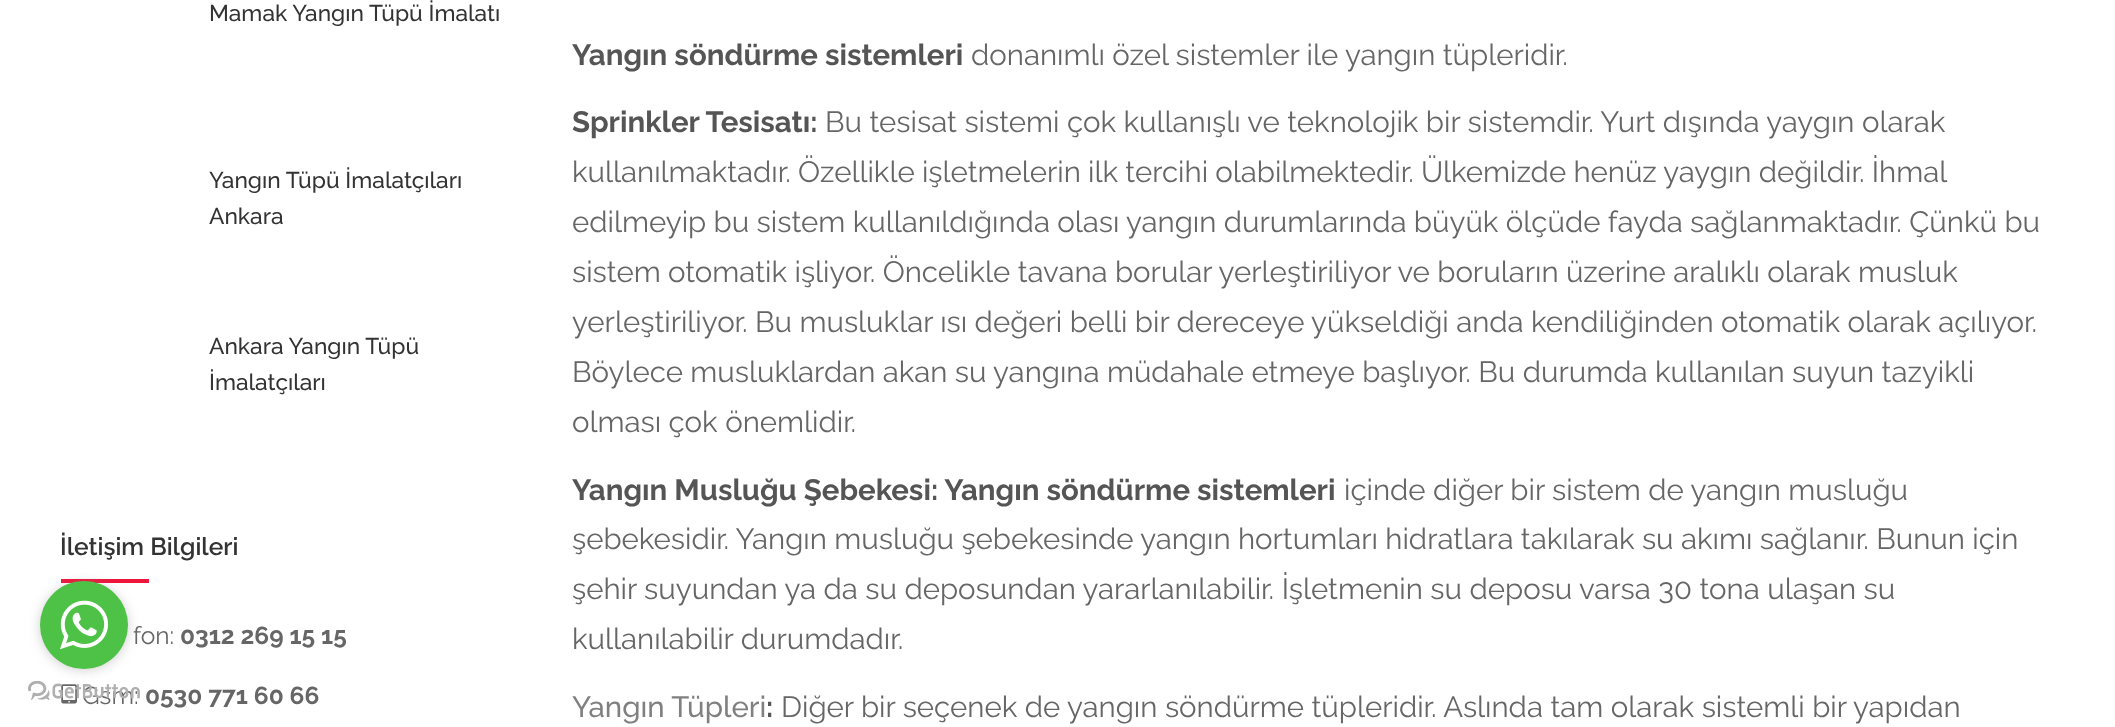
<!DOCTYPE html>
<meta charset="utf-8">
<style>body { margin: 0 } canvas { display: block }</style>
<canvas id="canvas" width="2115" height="727"></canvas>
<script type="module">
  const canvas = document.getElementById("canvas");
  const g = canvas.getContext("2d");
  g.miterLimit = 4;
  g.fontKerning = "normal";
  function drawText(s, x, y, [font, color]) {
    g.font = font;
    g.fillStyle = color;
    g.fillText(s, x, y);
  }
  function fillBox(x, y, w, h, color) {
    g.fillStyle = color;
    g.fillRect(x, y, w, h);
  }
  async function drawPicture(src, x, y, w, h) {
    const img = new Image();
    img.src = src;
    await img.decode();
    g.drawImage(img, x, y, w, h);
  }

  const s1 = ["500 22.75px Raleway", "#333333"];
  const s2 = ["600 24.5px Raleway", "#333333"];
  const s3 = ["24.5px Raleway", "#666666"];
  const s4 = ["bold 24.5px Raleway", "#666666"];
  const s5 = ["bold 29.4px Raleway", "#555555"];
  const s6 = ["29.4px Raleway", "#666666"];
  const s7 = ["500 29.4px Raleway", "#808080"];

  fillBox(0, 0, 2115, 727, "#FFFFFF");
  drawText("Mamak Yangın Tüpü İmalatı", 209, 21, s1);
  drawText("Yangın Tüpü İmalatçıları", 209, 188, s1);
  drawText("Ankara", 209, 224, s1);
  drawText("Ankara Yangın Tüpü", 209, 354, s1);
  drawText("İmalatçıları", 209, 390, s1);
  drawText("İletişim Bilgileri", 60, 555, s2);
  fillBox(61, 579, 88, 4, "#EE163B");
  drawText("fon:", 133, 644, s3);
  drawText("0312 269 15 15", 180, 644, s4);
  await drawPicture("pic1.png", 61, 684, 16, 20);
  drawText("Gsm:", 82, 704, s3);
  drawText("0530 771 60 66", 145, 704, s4);
  drawText("Yangın söndürme sistemleri", 572, 65, s5);
  drawText("donanımlı özel sistemler ile yangın tüpleridir.", 971, 65, s6);
  drawText("Sprinkler Tesisatı:", 572, 132, s5);
  drawText("Bu tesisat sistemi çok kullanışlı ve teknolojik bir sistemdir. Yurt dışında yaygın olarak", 825, 132, s6);
  g.wordSpacing = "-0.25px";
  drawText("kullanılmaktadır. Özellikle işletmelerin ilk tercihi olabilmektedir. Ülkemizde henüz yaygın değildir. İhmal", 572, 182, s6);
  g.wordSpacing = "-0.1px";
  drawText("edilmeyip bu sistem kullanıldığında olası yangın durumlarında büyük ölçüde fayda sağlanmaktadır. Çünkü bu", 572, 232, s6);
  drawText("sistem otomatik işliyor. Öncelikle tavana borular yerleştiriliyor ve boruların üzerine aralıklı olarak musluk", 572, 282, s6);
  drawText("yerleştiriliyor. Bu musluklar ısı değeri belli bir dereceye yükseldiği anda kendiliğinden otomatik olarak açılıyor.", 572, 332, s6);
  drawText("Böylece musluklardan akan su yangına müdahale etmeye başlıyor. Bu durumda kullanılan suyun tazyikli", 572, 382, s6);
  g.wordSpacing = "0px";
  drawText("olması çok önemlidir.", 572, 432, s6);
  drawText("Yangın Musluğu Şebekesi: Yangın söndürme sistemleri", 572, 500, s5);
  drawText("içinde diğer bir sistem de yangın musluğu", 1344, 500, s6);
  g.wordSpacing = "-0.1px";
  drawText("şebekesidir. Yangın musluğu şebekesinde yangın hortumları hidratlara takılarak su akımı sağlanır. Bunun için", 572, 549, s6);
  g.wordSpacing = "0px";
  drawText("şehir suyundan ya da su deposundan yararlanılabilir. İşletmenin su deposu varsa 30 tona ulaşan su", 572, 599, s6);
  drawText("kullanılabilir durumdadır.", 572, 649, s6);
  drawText("Yangın Tüpleri", 572, 717, s7);
  drawText(":", 766, 717, s5);
  drawText("Diğer bir seçenek de yangın söndürme tüpleridir. Aslında tam olarak sistemli bir yapıdan", 781, 717, s6);
  await drawPicture("pic3.png", 28, 681, 112, 19);
  g.fillStyle = "rgba(136, 136, 136, 0.4)";
  g.filter = "blur(6px)";
  g.beginPath();
  g.roundRect(40, 583, 88, 87, 43.5);
  g.fill();
  g.filter = "none";
  g.fillStyle = "#4DC247";
  g.beginPath();
  g.arc(84, 625, 44, 0, Math.PI * 2);
  g.fill();
  await drawPicture("pic2.png", 60, 600, 49, 50);
</script>
